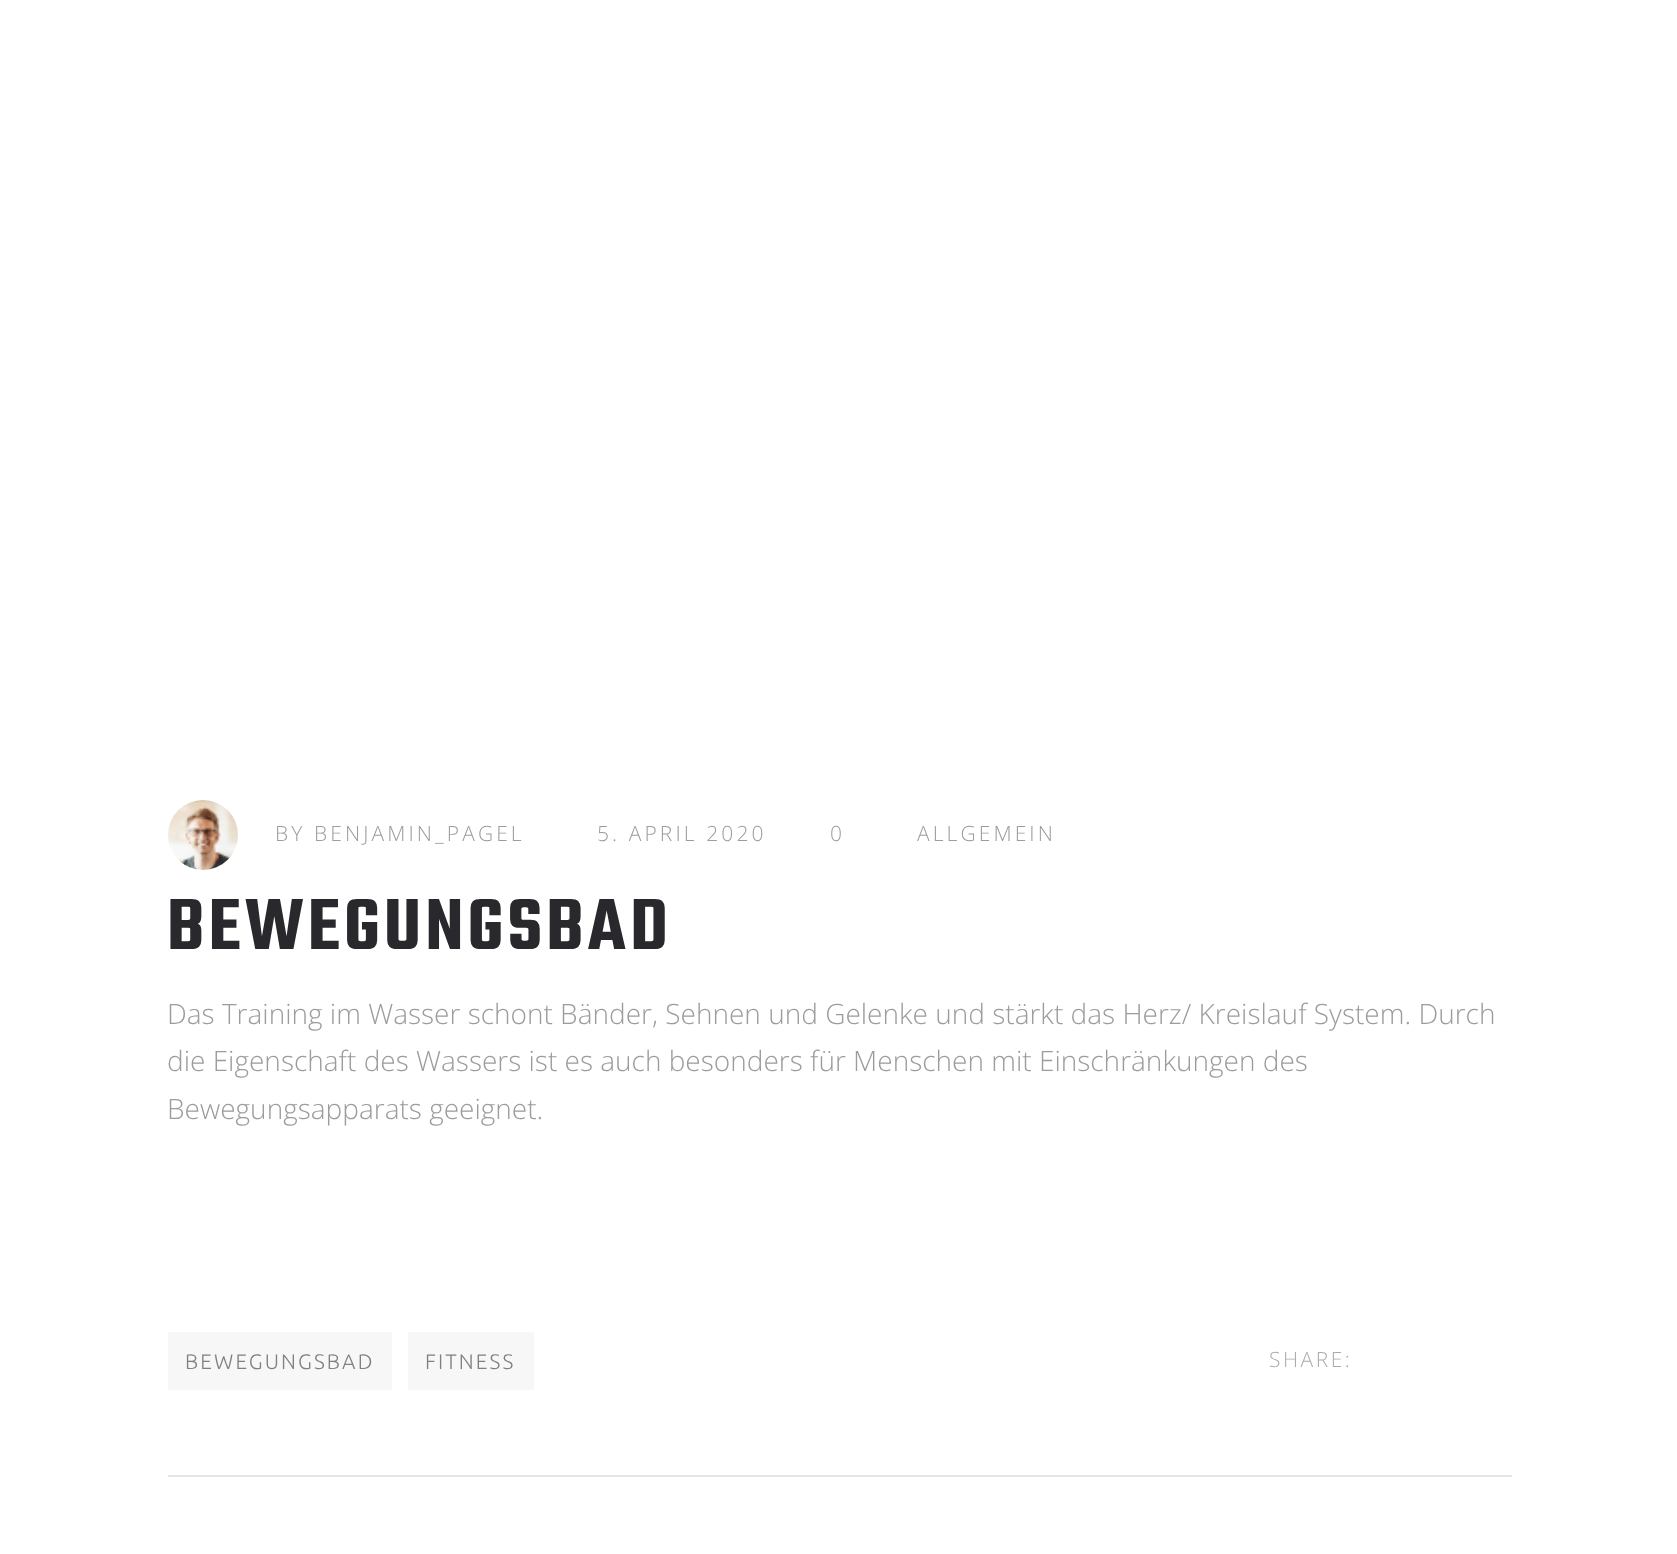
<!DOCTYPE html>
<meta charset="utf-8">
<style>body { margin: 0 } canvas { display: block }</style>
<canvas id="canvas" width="1677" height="1554"></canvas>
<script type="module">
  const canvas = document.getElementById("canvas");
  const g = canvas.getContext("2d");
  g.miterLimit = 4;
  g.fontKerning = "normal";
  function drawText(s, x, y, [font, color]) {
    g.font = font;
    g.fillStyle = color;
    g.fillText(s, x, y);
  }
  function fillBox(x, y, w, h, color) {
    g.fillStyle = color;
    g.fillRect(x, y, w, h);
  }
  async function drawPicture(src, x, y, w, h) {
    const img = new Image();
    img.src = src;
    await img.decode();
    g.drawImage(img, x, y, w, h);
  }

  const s1 = ["300 21px Open Sans", "#9C9C9C"];
  const s2 = ["600 78.75px Teko", "#29282D"];
  const s3 = ["300 28px Open Sans", "#9C9C9C"];
  const s4 = ["300 21px Ubuntu", "#808080"];
  const s5 = ["300 21px Open Sans", "#ABABAB"];

  fillBox(0, 0, 1677, 1554, "#FFFFFF");
  await drawPicture("pic1.png", 168, 800, 70, 70);
  g.letterSpacing = "3.1px";
  drawText("BY BENJAMIN_PAGEL", 275, 841, s1);
  drawText("5. APRIL 2020", 597, 841, s1);
  drawText("0", 830, 841, s1);
  drawText("ALLGEMEIN", 917, 841, s1);
  g.letterSpacing = "4px";
  drawText("BEWEGUNGSBAD", 167, 949, s2);
  g.letterSpacing = "0px";
  drawText("Das Training im Wasser schont Bänder, Sehnen und Gelenke und stärkt das Herz/ Kreislauf System. Durch", 167, 1024, s3);
  drawText("die Eigenschaft des Wassers ist es auch besonders für Menschen mit Einschränkungen des", 167, 1071, s3);
  drawText("Bewegungsapparats geeignet.", 167, 1119, s3);
  fillBox(168, 1475, 1344, 2, "#E5E5E5");
  fillBox(168, 1332, 224, 58, "#F7F7F7");
  g.letterSpacing = "2.1px";
  drawText("BEWEGUNGSBAD", 185, 1369, s4);
  fillBox(408, 1332, 126, 58, "#F7F7F7");
  drawText("FITNESS", 425, 1369, s4);
  g.letterSpacing = "2.5px";
  drawText("SHARE:", 1269, 1367, s5);
</script>
